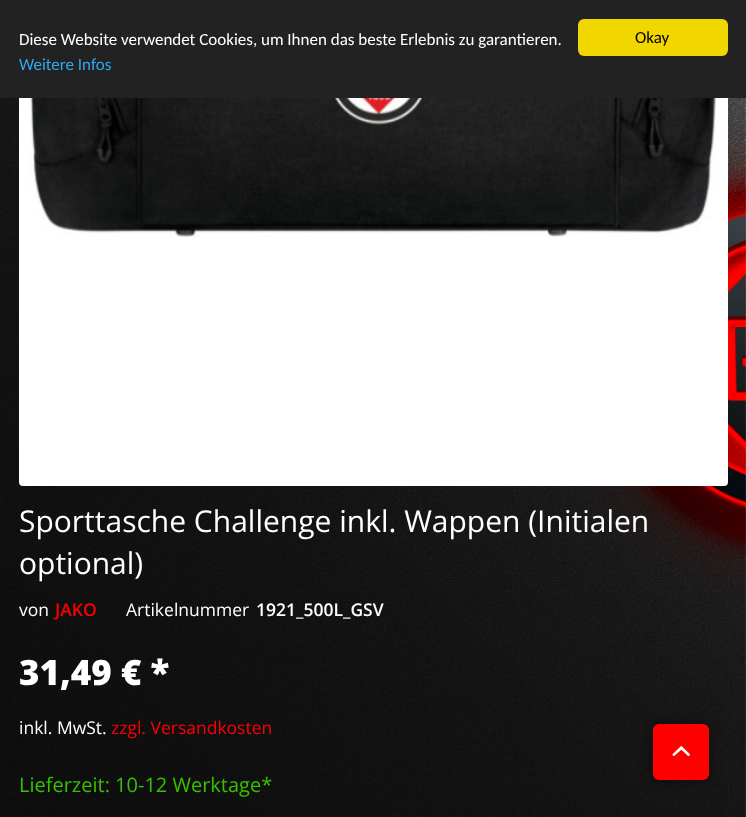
<!DOCTYPE html>
<meta charset="utf-8">
<style>body { margin: 0 } canvas { display: block }</style>
<canvas id="canvas" width="746" height="817"></canvas>
<script type="module">
  const canvas = document.getElementById("canvas");
  const g = canvas.getContext("2d");
  g.miterLimit = 4;
  g.fontKerning = "normal";
  function drawText(s, x, y, [font, color]) {
    g.font = font;
    g.fillStyle = color;
    g.fillText(s, x, y);
  }
  function fillBox(x, y, w, h, color) {
    g.fillStyle = color;
    g.fillRect(x, y, w, h);
  }
  function fillRounded(x, y, w, h, r, color) {
    g.fillStyle = color;
    g.beginPath();
    g.roundRect(x, y, w, h, r);
    g.fill();
  }
  async function drawPicture(src, x, y, w, h) {
    const img = new Image();
    img.src = src;
    await img.decode();
    g.drawImage(img, x, y, w, h);
  }

  const s1 = ["17px Carlito", "#FFFFFF"];
  const s2 = ["17px Carlito", "#31A8F0"];
  const s3 = ["17px Carlito", "#000000"];
  const s4 = ["30px Open Sans", "#FFFFFF"];
  const s5 = ["17.5px Open Sans", "#FFFFFF"];
  const s6 = ["600 17.5px Open Sans", "#FF0000"];
  const s7 = ["600 17.5px Open Sans", "#FFFFFF"];
  const s8 = ["800 35px Open Sans", "#FFFFFF"];
  const s9 = ["17.5px Open Sans", "#FF0000"];
  const s10 = ["20px Open Sans", "#37C100"];

  fillBox(0, 0, 746, 817, "#FFFFFF");
  await drawPicture("pic1.png", 0, 98, 746, 719);
  fillRounded(19, -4, 709, 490, 4, "#FFFFFF");
  fillBox(0, 0, 746, 98, "#222222");
  drawText("Diese Website verwendet Cookies, um Ihnen das beste Erlebnis zu garantieren.", 19, 45, s1);
  drawText("Weitere Infos", 19, 70, s2);
  fillRounded(578, 19, 150, 37, 6, "#F1D600");
  drawText("Okay", 635, 43, s3);
  await drawPicture("pic2.png", 28, 98, 690, 140);
  drawText("Sporttasche Challenge inkl. Wappen (Initialen", 19, 532, s4);
  drawText("optional)", 19, 574, s4);
  drawText("von", 19, 616, s5);
  drawText("JAKO", 55, 616, s6);
  drawText("Artikelnummer", 126, 616, s5);
  drawText("1921_500L_GSV", 256, 616, s7);
  drawText("31,49 € *", 19, 685, s8);
  drawText("inkl. MwSt.", 19, 734, s5);
  drawText("zzgl. Versandkosten", 111, 734, s9);
  drawText("Lieferzeit: 10-12 Werktage*", 19, 792, s10);
  g.fillStyle = "rgba(0, 0, 0, 0.5)";
  g.filter = "blur(6px)";
  g.beginPath();
  g.roundRect(653, 724, 56, 56, 6);
  g.fill();
  g.filter = "none";
  fillRounded(653, 724, 56, 56, 6, "#FF0000");
  await drawPicture("pic3.png", 672, 746, 18, 10);
</script>
